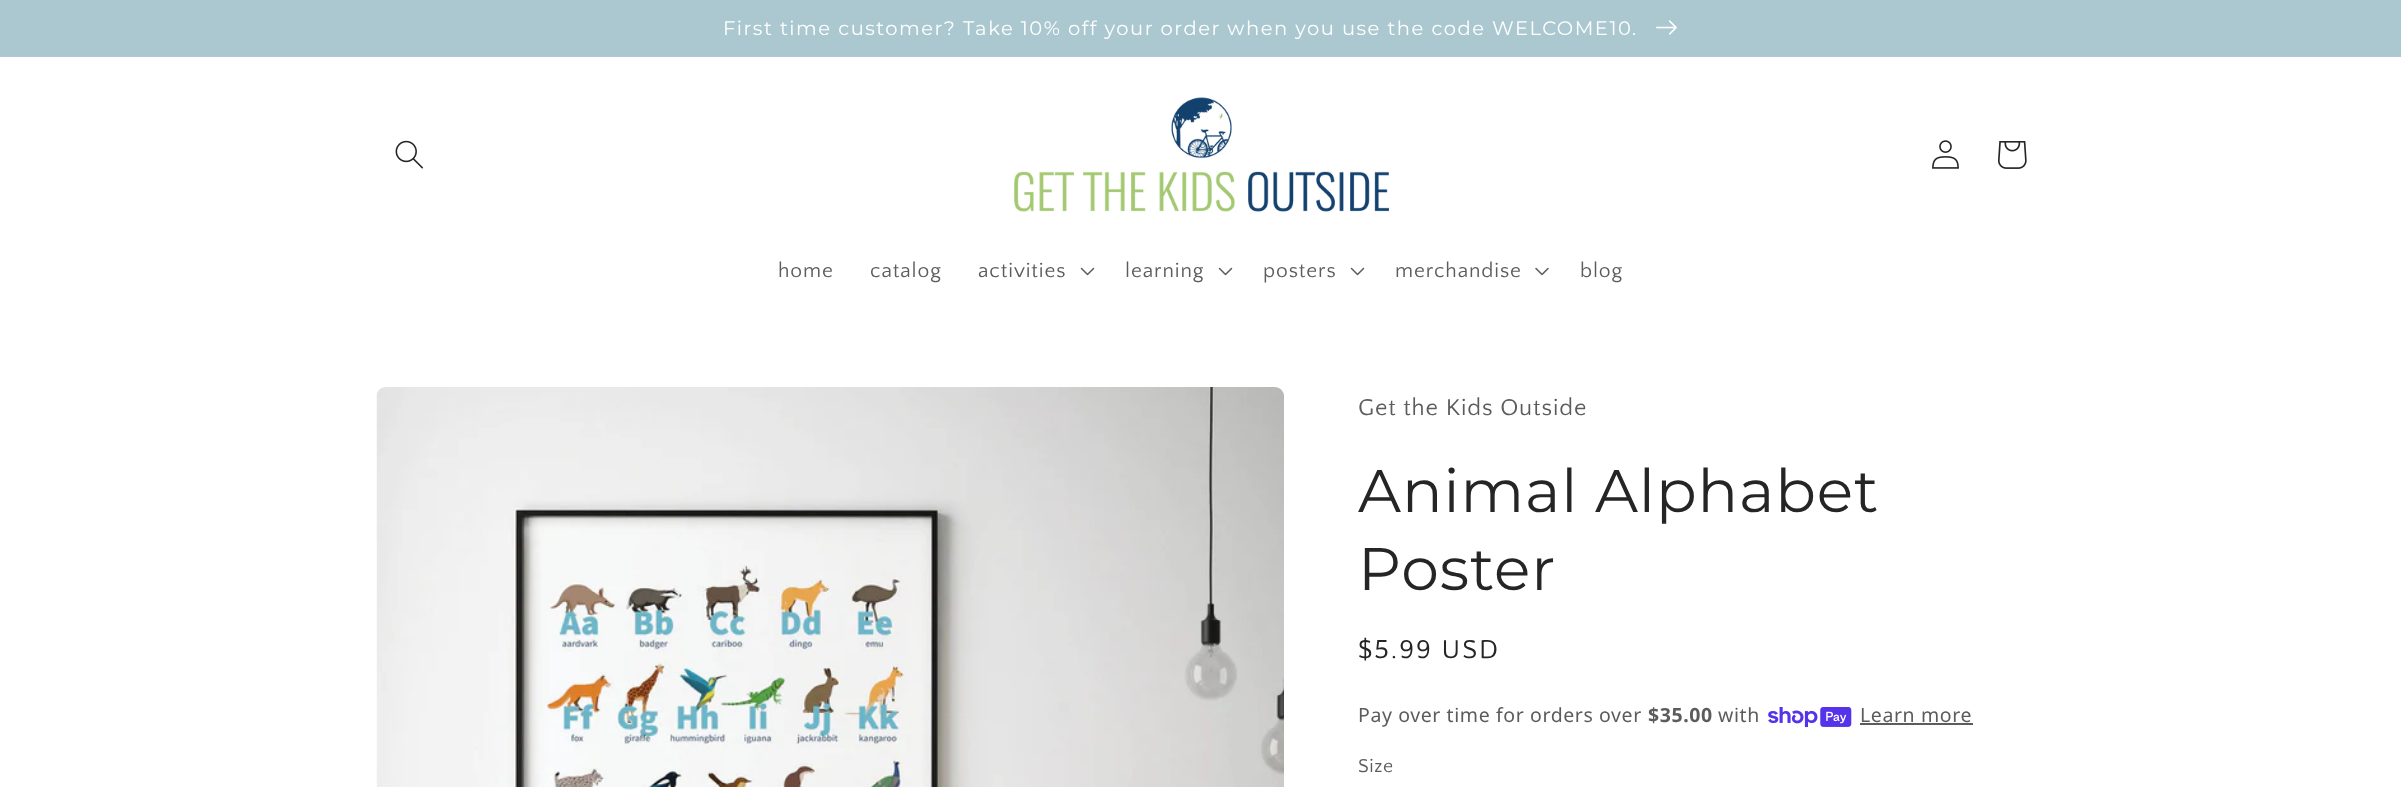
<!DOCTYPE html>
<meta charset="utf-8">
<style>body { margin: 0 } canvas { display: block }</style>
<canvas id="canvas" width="2401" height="787"></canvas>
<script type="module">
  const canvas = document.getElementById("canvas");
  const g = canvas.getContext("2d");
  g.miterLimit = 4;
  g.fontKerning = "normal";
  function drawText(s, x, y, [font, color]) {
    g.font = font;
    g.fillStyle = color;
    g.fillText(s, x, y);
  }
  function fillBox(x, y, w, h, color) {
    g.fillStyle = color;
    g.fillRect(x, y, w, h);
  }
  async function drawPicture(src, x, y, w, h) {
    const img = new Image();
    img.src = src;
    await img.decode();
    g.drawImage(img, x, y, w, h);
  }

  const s1 = ["19.5px Montserrat", "#FFFFFF"];
  const s2 = ["21px Quattrocento Sans", "#5C5C5C"];
  const s3 = ["24px Quattrocento Sans", "#5C5C5C"];
  const s4 = ["60px Montserrat", "#252525"];
  const s5 = ["27px Quattrocento Sans", "#252525"];
  const s6 = ["19.5px Noto Sans", "#5C5C5C"];
  const s7 = ["bold 19.5px Noto Sans", "#5C5C5C"];
  const s8 = ["19.5px Quattrocento Sans", "#5C5C5C"];

  fillBox(0, 0, 2401, 787, "#FFFFFF");
  fillBox(0, 56, 2401, 1, "#ADC9D2");
  fillBox(0, 0, 2401, 56, "#ABC8D1");
  g.letterSpacing = "1.5px";
  drawText("First time customer? Take 10% off your order when you use the code WELCOME10.", 723, 35, s1);
  await drawPicture("pic1.png", 1656, 20, 21, 15);
  await drawPicture("pic2.png", 395, 140, 28, 29);
  await drawPicture("pic3.png", 1014, 97, 375, 115);
  await drawPicture("pic4.png", 1932, 140, 27, 29);
  await drawPicture("pic5.png", 1998, 141, 29, 28);
  g.letterSpacing = "0.9px";
  drawText("home", 778, 277, s2);
  drawText("catalog", 870, 277, s2);
  drawText("activities", 978, 277, s2);
  await drawPicture("pic6.png", 1080, 267, 15, 9);
  drawText("learning", 1125, 277, s2);
  await drawPicture("pic6.png", 1218, 267, 15, 9);
  drawText("posters", 1263, 277, s2);
  await drawPicture("pic6.png", 1350, 267, 15, 9);
  drawText("merchandise", 1395, 277, s2);
  await drawPicture("pic7.png", 1535, 267, 14, 9);
  drawText("blog", 1580, 277, s2);
  await drawPicture("pic8.png", 376, 387, 908, 400);
  drawText("Get the Kids Outside", 1358, 415, s3);
  drawText("Animal Alphabet", 1358, 512, s4);
  drawText("Poster", 1358, 590, s4);
  g.letterSpacing = "2px";
  drawText("$5.99 USD", 1358, 658, s5);
  g.letterSpacing = "0.6px";
  drawText("Pay over time for orders over", 1358, 722, s6);
  drawText("$35.00", 1648, 722, s7);
  drawText("with", 1718, 722, s6);
  await drawPicture("pic9.png", 1768, 707, 84, 21);
  drawText("Learn more", 1860, 722, s6);
  fillBox(1860, 723, 113, 2, "#5C5C5C");
  drawText("Size", 1358, 772, s8);
</script>
